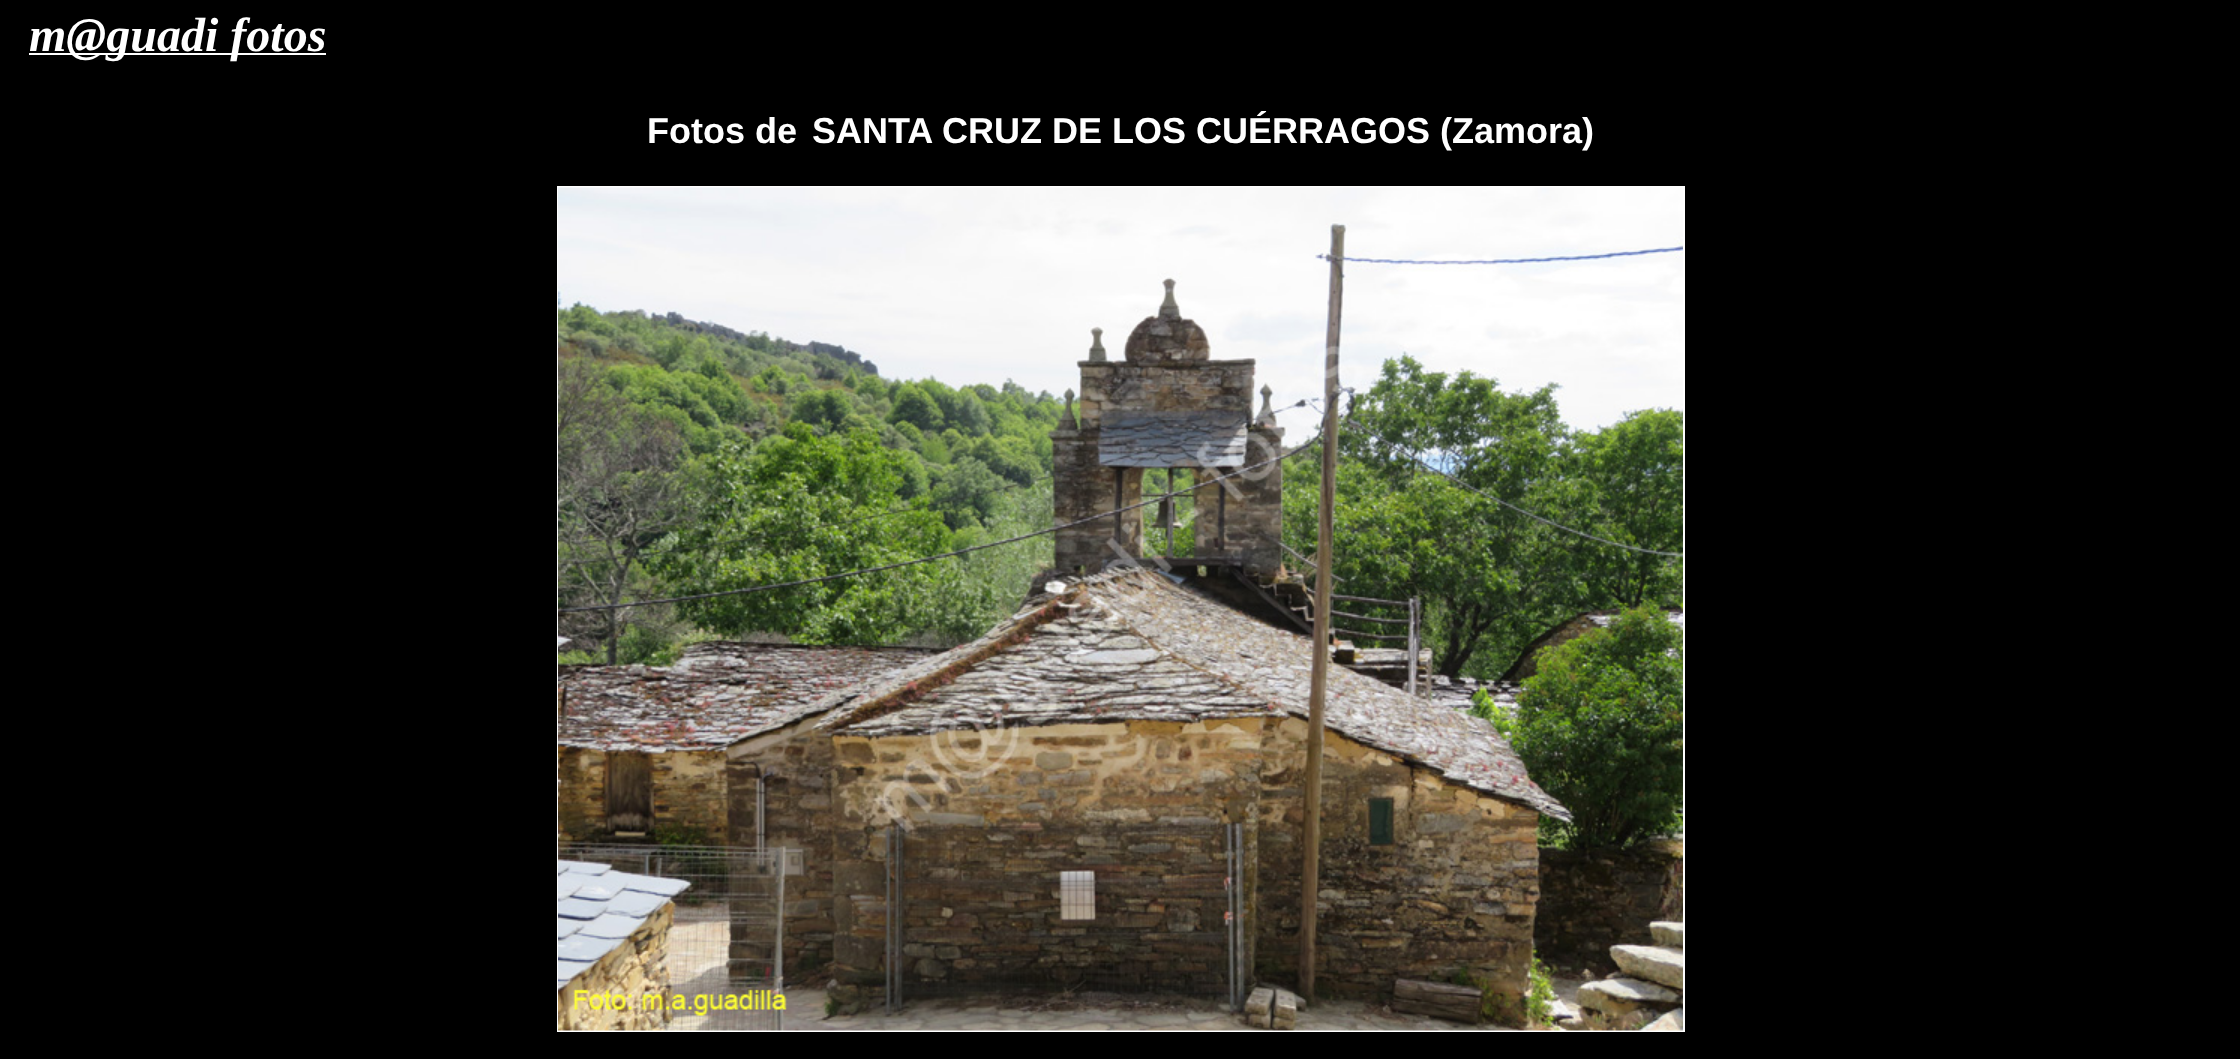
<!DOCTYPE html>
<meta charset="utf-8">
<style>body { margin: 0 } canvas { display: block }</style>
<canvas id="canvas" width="2240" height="1059"></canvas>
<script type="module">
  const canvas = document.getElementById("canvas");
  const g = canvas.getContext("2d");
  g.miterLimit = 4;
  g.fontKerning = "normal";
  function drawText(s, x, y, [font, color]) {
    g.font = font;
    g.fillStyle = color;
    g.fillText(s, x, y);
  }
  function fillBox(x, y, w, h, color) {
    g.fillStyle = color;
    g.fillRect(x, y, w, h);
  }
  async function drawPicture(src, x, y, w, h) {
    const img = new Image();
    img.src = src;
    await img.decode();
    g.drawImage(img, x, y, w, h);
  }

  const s1 = ["italic bold 48px Liberation Serif", "#FFFFFF"];
  const s2 = ["bold 36px Liberation Sans", "#FFFFFF"];

  fillBox(0, 0, 2240, 1059, "#000000");
  fillBox(29, 53, 297, 2, "#FFFFFF");
  drawText("m@guadi fotos", 29, 51, s1);
  drawText("Fotos de", 647, 143, s2);
  drawText("SANTA CRUZ DE LOS CUÉRRAGOS (Zamora)", 812, 143, s2);
  g.strokeStyle = "#FFFFFF";
  g.lineWidth = 2;
  g.strokeRect(558, 187, 1126, 844);
  await drawPicture("pic1.png", 558, 187, 1125, 844);
</script>
